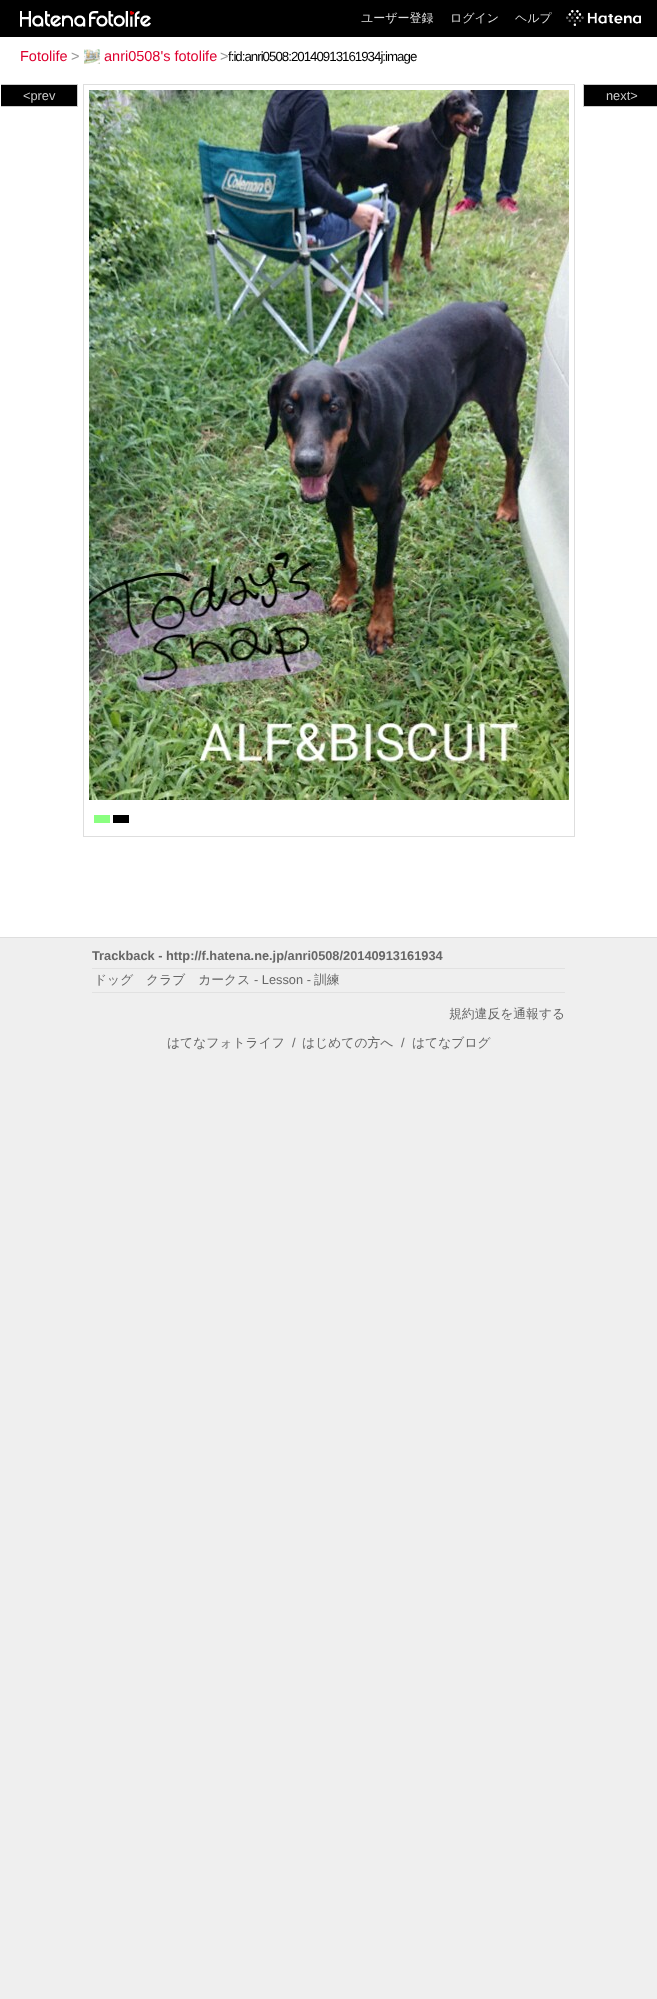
<!DOCTYPE html>
<meta charset="utf-8">
<style>body { margin: 0 } canvas { display: block }</style>
<canvas id="canvas" width="657" height="1999"></canvas>
<script type="module">
  const canvas = document.getElementById("canvas");
  const g = canvas.getContext("2d");
  g.miterLimit = 4;
  g.fontKerning = "normal";
  function drawText(s, x, y, [font, color]) {
    g.font = font;
    g.fillStyle = color;
    g.fillText(s, x, y);
  }
  function fillBox(x, y, w, h, color) {
    g.fillStyle = color;
    g.fillRect(x, y, w, h);
  }
  async function drawPicture(src, x, y, w, h) {
    const img = new Image();
    img.src = src;
    await img.decode();
    g.drawImage(img, x, y, w, h);
  }

  const s1 = ["500 12px WenQuanYi Zen Hei", "#DDDDDD"];
  const s2 = ["14.5px Liberation Sans", "#DE002F"];
  const s3 = ["14.5px Liberation Sans", "#999999"];
  const s4 = ["13.3px Liberation Sans", "#000000"];
  const s5 = ["12.8px Liberation Sans", "#CCCCCC"];
  const s6 = ["bold 12.8px Liberation Sans", "#666666"];
  const s7 = ["500 12.8px WenQuanYi Zen Hei", "#666666"];
  const s8 = ["12.8px Liberation Sans", "#666666"];

  fillBox(0, 0, 657, 1999, "#EFEFEF");
  fillBox(0, 0, 657, 37, "#000000");
  await drawPicture("pic1.png", 20, 11, 66, 16);
  await drawPicture("pic2.png", 89, 11, 62, 16);
  drawText("ユーザー登録", 361, 22, s1);
  drawText("ログイン", 450, 22, s1);
  drawText("ヘルプ", 515, 22, s1);
  await drawPicture("pic3.png", 566, 10, 75, 16);
  fillBox(0, 37, 657, 900, "#FFFFFF");
  drawText("Fotolife", 20, 61, s2);
  drawText(">", 71, 61, s3);
  await drawPicture("pic4.png", 84, 49, 16, 15);
  drawText("anri0508's fotolife", 104, 61, s2);
  drawText(">", 220, 61, s3);
  g.letterSpacing = "-1px";
  drawText("f:id:anri0508:20140913161934j:image", 228, 61, s4);
  fillBox(0, 937, 657, 1, "#DEDEDE");
  fillBox(1, 85, 76, 21, "#000000");
  fillBox(1, 84, 77, 1, "#CCCCCC");
  fillBox(77, 84, 1, 23, "#CCCCCC");
  fillBox(1, 106, 77, 1, "#CCCCCC");
  g.letterSpacing = "0px";
  drawText("<prev", 23, 100, s5);
  g.strokeStyle = "#DEDEDE";
  g.strokeRect(83.5, 84.5, 491, 752);
  await drawPicture("pic5.png", 89, 90, 480, 710);
  fillBox(94, 815, 16, 8, "#8AFF80");
  fillBox(113, 815, 16, 8, "#000000");
  fillBox(584, 85, 73, 21, "#000000");
  fillBox(583, 84, 74, 1, "#CCCCCC");
  fillBox(583, 106, 74, 1, "#CCCCCC");
  fillBox(583, 84, 1, 23, "#CCCCCC");
  drawText("next>", 606, 100, s5);
  drawText("Trackback - http://f.hatena.ne.jp/anri0508/20140913161934", 92, 960, s6);
  fillBox(92, 968, 473, 1, "#E1E1E1");
  fillBox(92, 992, 473, 1, "#E1E1E1");
  drawText("ドッグ　クラブ　カークス", 94, 984, s7);
  drawText("- Lesson -", 254, 984, s8);
  drawText("訓練", 314, 984, s7);
  drawText("規約違反を通報する", 449, 1018, s7);
  drawText("はてなフォトライフ", 167, 1047, s7);
  drawText("/", 292, 1047, s8);
  drawText("はじめての方へ", 302, 1047, s7);
  drawText("/", 401, 1047, s8);
  drawText("はてなブログ", 412, 1047, s7);
</script>
